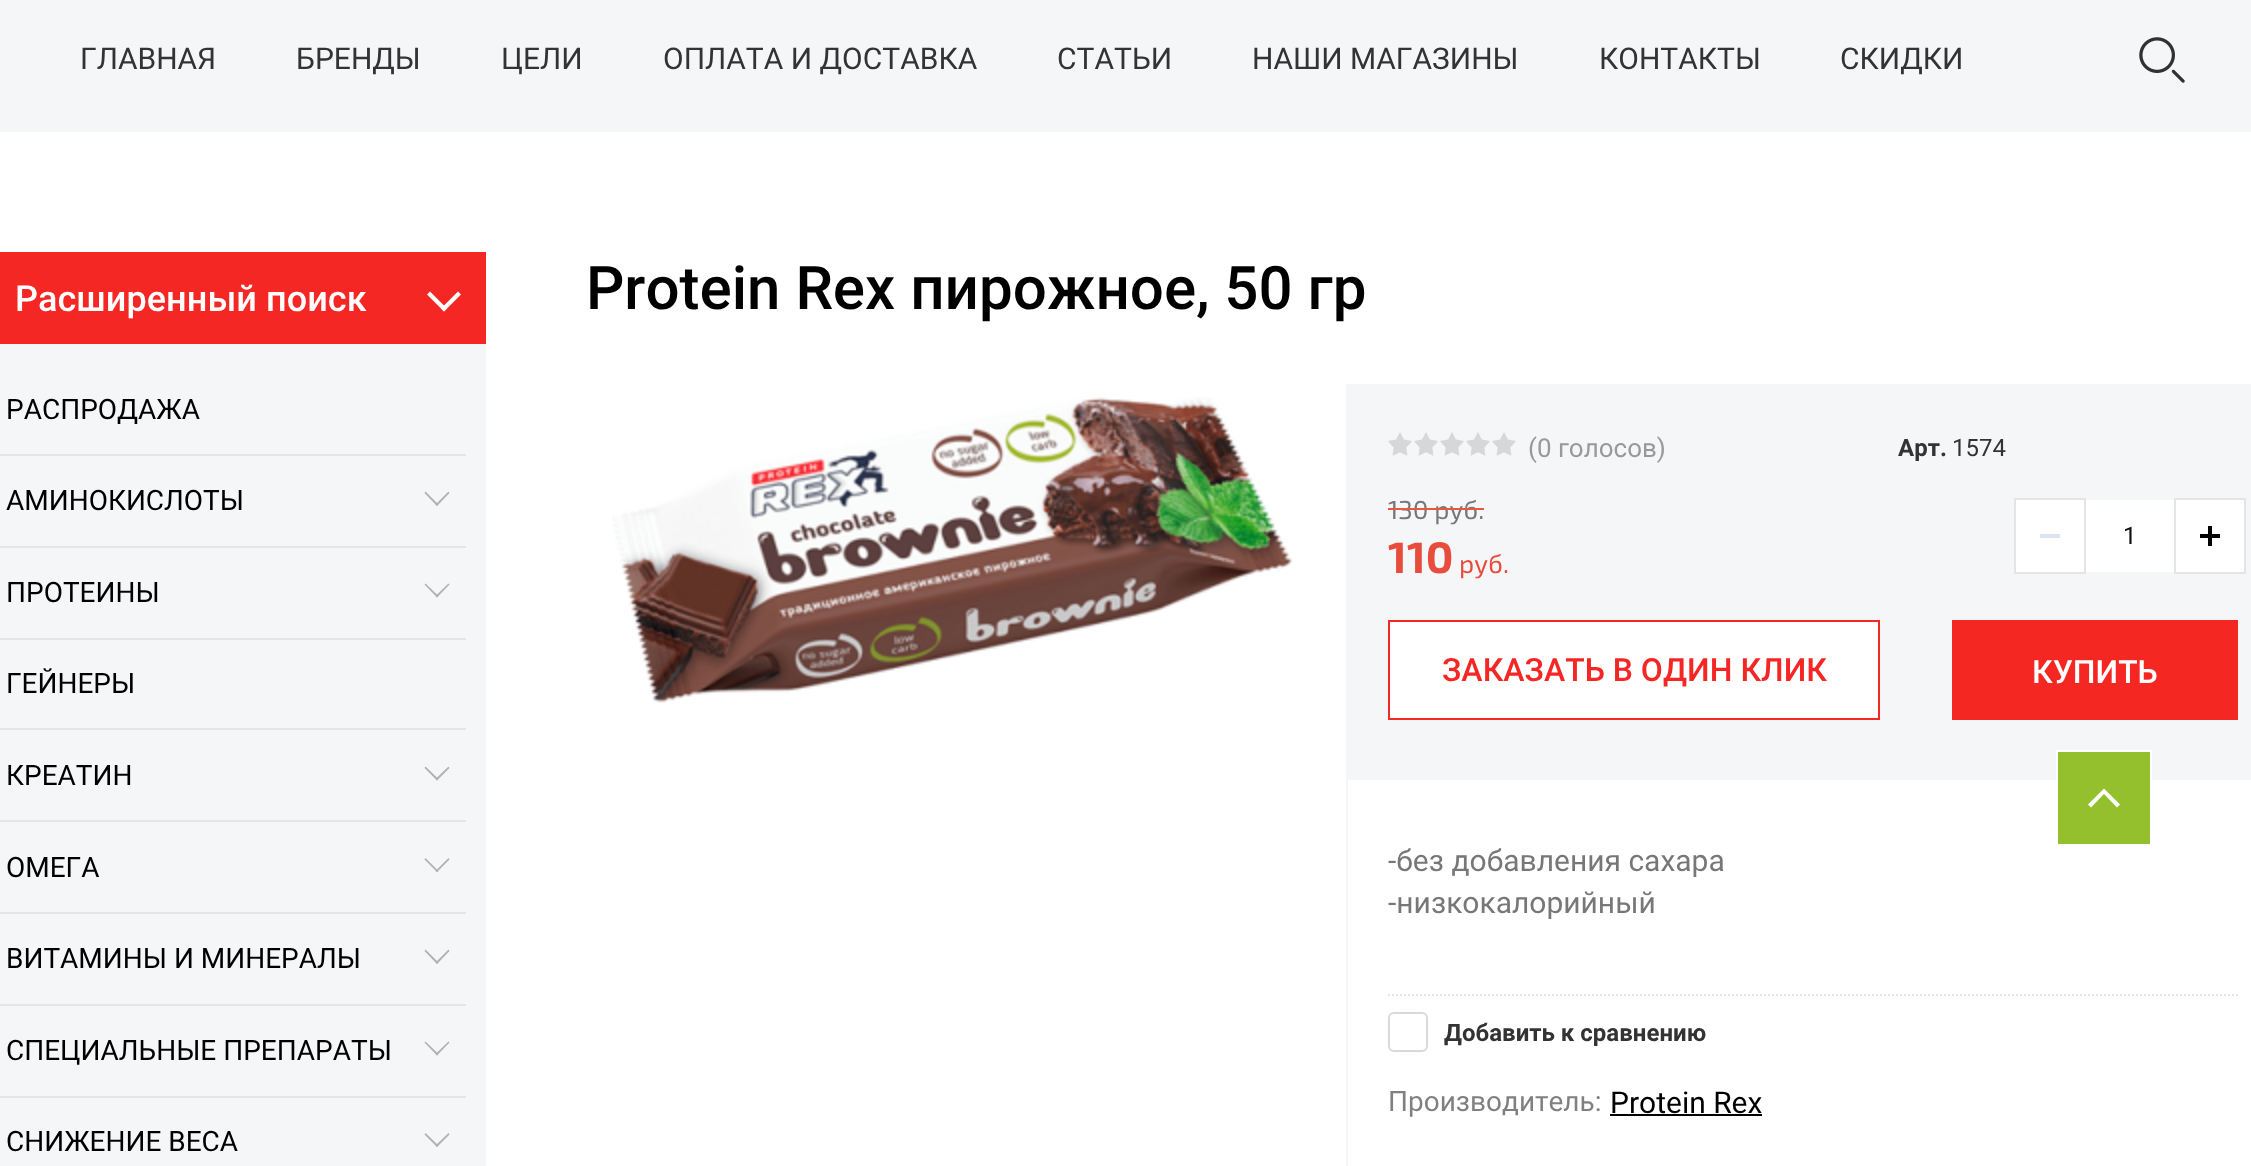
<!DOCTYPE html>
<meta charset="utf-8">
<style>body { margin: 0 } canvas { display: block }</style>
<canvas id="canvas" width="2251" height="1166"></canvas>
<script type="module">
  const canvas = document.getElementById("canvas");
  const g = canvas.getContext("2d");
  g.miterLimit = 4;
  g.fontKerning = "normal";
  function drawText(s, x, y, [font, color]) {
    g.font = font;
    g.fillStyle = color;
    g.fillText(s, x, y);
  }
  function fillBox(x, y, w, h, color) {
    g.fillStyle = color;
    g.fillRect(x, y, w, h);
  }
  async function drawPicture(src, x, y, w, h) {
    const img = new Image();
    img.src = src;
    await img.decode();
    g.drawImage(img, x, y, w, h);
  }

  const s1 = ["30px Roboto", "#333333"];
  const s2 = ["500 36px Roboto", "#FFFFFF"];
  const s3 = ["28px Roboto", "#000000"];
  const s4 = ["500 60px Roboto", "#000000"];
  const s5 = ["26px Roboto", "#999999"];
  const s6 = ["bold 24px Roboto", "#333333"];
  const s7 = ["24px Roboto", "#333333"];
  const s8 = ["26px 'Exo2'", "#777777"];
  const s9 = ["bold 44px 'Exo2'", "#E74C3C"];
  const s10 = ["26px 'Exo2'", "#E74C3C"];
  const s11 = ["24px Roboto", "#101010"];
  const s12 = ["500 32px Roboto", "#F52725"];
  const s13 = ["500 32px Roboto", "#FFFFFF"];
  const s14 = ["30px Roboto", "#777777"];
  const s15 = ["28px Roboto", "#808080"];
  const s16 = ["30px Roboto", "#000000"];

  fillBox(0, 0, 2251, 1166, "#FFFFFF");
  fillBox(0, 0, 2251, 132, "#F5F6F8");
  drawText("ГЛАВНАЯ", 80, 69, s1);
  drawText("БРЕНДЫ", 296, 69, s1);
  drawText("ЦЕЛИ", 501, 69, s1);
  drawText("ОПЛАТА И ДОСТАВКА", 663, 69, s1);
  drawText("СТАТЬИ", 1057, 69, s1);
  drawText("НАШИ МАГАЗИНЫ", 1252, 69, s1);
  drawText("КОНТАКТЫ", 1599, 69, s1);
  drawText("СКИДКИ", 1840, 69, s1);
  await drawPicture("pic1.png", 2139, 37, 46, 46);
  fillBox(0, 252, 486, 92, "#F52725");
  drawText("Расширенный поиск", 15, 311, s2);
  g.beginPath();
  g.moveTo(458, 291.5);
  g.lineTo(461, 294.5);
  g.lineTo(444, 311.5);
  g.lineTo(441, 308.5);
  g.closePath();
  g.fill();
  g.beginPath();
  g.moveTo(430, 291.5);
  g.lineTo(447, 308.5);
  g.lineTo(444, 311.5);
  g.lineTo(427, 294.5);
  g.closePath();
  g.fill();
  fillBox(0, 344, 486, 822, "#F5F6F8");
  fillBox(0, 454, 466, 2, "#E5E5E5");
  drawText("РАСПРОДАЖА", 6, 419, s3);
  fillBox(0, 546, 466, 2, "#E5E5E5");
  drawText("АМИНОКИСЛОТЫ", 6, 510, s3);
  g.fillStyle = "#B1B1B3";
  g.beginPath();
  g.moveTo(448.5, 491.5);
  g.lineTo(449.5, 493);
  g.lineTo(437, 506);
  g.lineTo(435.5, 504.5);
  g.closePath();
  g.fill();
  g.beginPath();
  g.moveTo(425.5, 491.5);
  g.lineTo(438.5, 504.5);
  g.lineTo(437, 506);
  g.lineTo(424.5, 493);
  g.closePath();
  g.fill();
  fillBox(0, 638, 466, 2, "#E5E5E5");
  drawText("ПРОТЕИНЫ", 6, 602, s3);
  g.fillStyle = "#B1B1B3";
  g.beginPath();
  g.moveTo(448.5, 583.5);
  g.lineTo(449.5, 584.5);
  g.lineTo(437, 597.5);
  g.lineTo(435.5, 596);
  g.closePath();
  g.fill();
  g.beginPath();
  g.moveTo(425.5, 583.5);
  g.lineTo(438.5, 596);
  g.lineTo(437, 597.5);
  g.lineTo(424.5, 584.5);
  g.closePath();
  g.fill();
  fillBox(0, 728, 466, 2, "#E5E5E5");
  drawText("ГЕЙНЕРЫ", 6, 693, s3);
  fillBox(0, 820, 466, 2, "#E5E5E5");
  drawText("КРЕАТИН", 6, 785, s3);
  g.fillStyle = "#B1B1B3";
  g.beginPath();
  g.moveTo(448.5, 766.5);
  g.lineTo(449.5, 768);
  g.lineTo(437, 780.5);
  g.lineTo(435.5, 779);
  g.closePath();
  g.fill();
  g.beginPath();
  g.moveTo(425.5, 766.5);
  g.lineTo(438.5, 779);
  g.lineTo(437, 780.5);
  g.lineTo(424.5, 768);
  g.closePath();
  g.fill();
  fillBox(0, 912, 466, 2, "#E5E5E5");
  drawText("ОМЕГА", 6, 877, s3);
  g.fillStyle = "#B1B1B3";
  g.beginPath();
  g.moveTo(448.5, 858);
  g.lineTo(449.5, 859.5);
  g.lineTo(437, 872);
  g.lineTo(435.5, 871);
  g.closePath();
  g.fill();
  g.beginPath();
  g.moveTo(425.5, 858);
  g.lineTo(438.5, 871);
  g.lineTo(437, 872);
  g.lineTo(424.5, 859.5);
  g.closePath();
  g.fill();
  fillBox(0, 1004, 466, 2, "#E5E5E5");
  drawText("ВИТАМИНЫ И МИНЕРАЛЫ", 6, 968, s3);
  g.fillStyle = "#B1B1B3";
  g.beginPath();
  g.moveTo(448.5, 949.5);
  g.lineTo(449.5, 951);
  g.lineTo(437, 964);
  g.lineTo(435.5, 962.5);
  g.closePath();
  g.fill();
  g.beginPath();
  g.moveTo(425.5, 949.5);
  g.lineTo(438.5, 962.5);
  g.lineTo(437, 964);
  g.lineTo(424.5, 951);
  g.closePath();
  g.fill();
  fillBox(0, 1096, 466, 2, "#E5E5E5");
  drawText("СПЕЦИАЛЬНЫЕ ПРЕПАРАТЫ", 6, 1060, s3);
  g.fillStyle = "#B1B1B3";
  g.beginPath();
  g.moveTo(448.5, 1041.5);
  g.lineTo(449.5, 1042.5);
  g.lineTo(437, 1055.5);
  g.lineTo(435.5, 1054);
  g.closePath();
  g.fill();
  g.beginPath();
  g.moveTo(425.5, 1041.5);
  g.lineTo(438.5, 1054);
  g.lineTo(437, 1055.5);
  g.lineTo(424.5, 1042.5);
  g.closePath();
  g.fill();
  drawText("СНИЖЕНИЕ ВЕСА", 6, 1151, s3);
  g.fillStyle = "#B1B1B3";
  g.beginPath();
  g.moveTo(448.5, 1133);
  g.lineTo(449.5, 1134.5);
  g.lineTo(437, 1147);
  g.lineTo(435.5, 1145.5);
  g.closePath();
  g.fill();
  g.beginPath();
  g.moveTo(425.5, 1133);
  g.lineTo(438.5, 1145.5);
  g.lineTo(437, 1147);
  g.lineTo(424.5, 1134.5);
  g.closePath();
  g.fill();
  drawText("Protein Rex пирожное, 50 гр", 586, 309, s4);
  await drawPicture("pic2.png", 612, 397, 681, 306);
  g.strokeStyle = "#F5F6F8";
  g.lineWidth = 2;
  g.strokeRect(1347, 385, 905, 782);
  fillBox(1348, 386, 903, 394, "#F5F6F8");
  await drawPicture("pic3.png", 1388, 432, 128, 24);
  drawText("(0 голосов)", 1528, 457, s5);
  drawText("Арт.", 1898, 456, s6);
  drawText("1574", 1952, 456, s7);
  drawText("130 руб.", 1388, 519, s8);
  fillBox(1388, 508, 96, 2, "#E9573E");
  drawText("110", 1388, 573, s9);
  drawText("руб.", 1459, 573, s10);
  g.fillStyle = "#FFFFFF";
  g.beginPath();
  g.rect(2015, 499, 70, 74);
  g.fill();
  g.strokeStyle = "#E5E5E5";
  g.stroke();
  fillBox(2040, 534, 20, 4, "#DCE3F1");
  fillBox(2086, 500, 88, 72, "#FFFFFF");
  drawText("1", 2123, 544, s11);
  g.fillStyle = "#FFFFFF";
  g.beginPath();
  g.rect(2175, 499, 70, 74);
  g.fill();
  g.stroke();
  fillBox(2200, 534, 20, 4, "#000000");
  fillBox(2208, 526, 4, 20, "#000000");
  g.fillStyle = "#FFFFFF";
  g.beginPath();
  g.rect(1389, 621, 490, 98);
  g.fill();
  g.strokeStyle = "#F52725";
  g.stroke();
  drawText("ЗАКАЗАТЬ В ОДИН КЛИК", 1442, 681, s12);
  fillBox(1952, 620, 286, 100, "#F52723");
  drawText("КУПИТЬ", 2032, 683, s13);
  drawText("-без добавления сахара", 1388, 871, s14);
  drawText("-низкокалорийный", 1388, 913, s14);
  g.beginPath();
  g.moveTo(1388, 995);
  g.lineTo(2238, 995);
  g.strokeStyle = "#E5E5E5";
  g.setLineDash([2, 2]);
  g.stroke();
  g.beginPath();
  g.roundRect(1389, 1013, 38, 38, 5);
  g.strokeStyle = "#D9D9D9";
  g.setLineDash([]);
  g.stroke();
  drawText("Добавить к сравнению", 1444, 1041, s6);
  drawText("Производитель:", 1388, 1111, s15);
  drawText("Protein Rex", 1610, 1113, s16);
  fillBox(1610, 1114, 152, 2, "#000000");
  fillBox(2058, 752, 92, 92, "#93C02C");
  g.fillStyle = "#FFFFFF";
  g.beginPath();
  g.moveTo(2091, 807.5);
  g.lineTo(2104, 794);
  g.lineTo(2117, 807.5);
  g.lineTo(2120, 804.5);
  g.lineTo(2104, 788.5);
  g.lineTo(2088, 804.5);
  g.closePath();
  g.fill("evenodd");
  g.beginPath();
  g.moveTo(2151, 751);
  g.lineTo(2151, 845);
  g.lineTo(2057, 845);
  g.lineTo(2057, 751);
  g.closePath();
  g.strokeStyle = "#FFFFFF";
  g.stroke();
</script>
